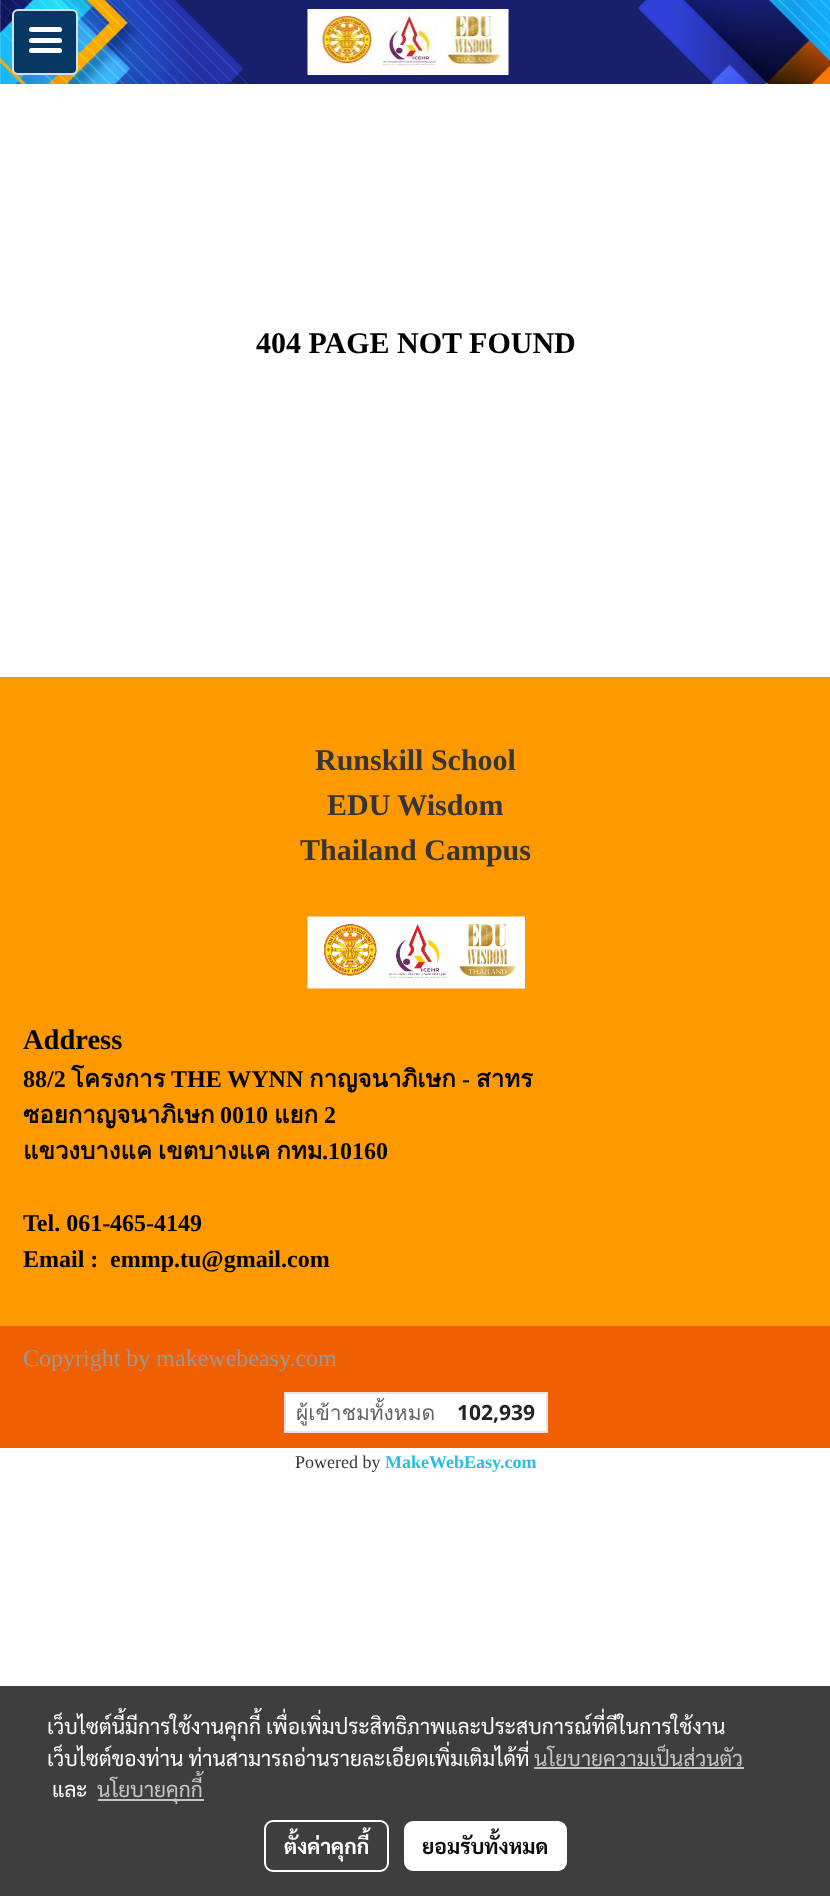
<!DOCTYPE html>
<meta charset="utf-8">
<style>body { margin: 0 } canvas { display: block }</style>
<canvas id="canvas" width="830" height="1896"></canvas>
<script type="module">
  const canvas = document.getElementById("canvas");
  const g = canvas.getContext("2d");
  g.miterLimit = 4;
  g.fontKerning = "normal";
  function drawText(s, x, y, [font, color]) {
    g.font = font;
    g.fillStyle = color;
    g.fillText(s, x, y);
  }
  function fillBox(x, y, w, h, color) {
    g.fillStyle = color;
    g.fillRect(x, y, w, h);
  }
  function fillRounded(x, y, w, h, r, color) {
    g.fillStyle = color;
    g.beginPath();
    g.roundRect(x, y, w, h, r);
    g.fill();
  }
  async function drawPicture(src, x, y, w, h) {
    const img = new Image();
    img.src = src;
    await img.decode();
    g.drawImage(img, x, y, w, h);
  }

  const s1 = ["bold 30px Liberation Serif", "#000000"];
  const s2 = ["bold 30px Liberation Serif", "#353535"];
  const s3 = ["bold 28.5px Liberation Serif", "#000000"];
  const s4 = ["bold 24px Liberation Serif", "#000000"];
  const s5 = ["bold 24px Loma", "#000000"];
  const s6 = ["24px Liberation Serif", "#999999"];
  const s7 = ["21px Loma", "#636363"];
  const s8 = ["bold 21px Open Sans", "#242424"];
  const s9 = ["18px Liberation Serif", "#353535"];
  const s10 = ["bold 18px Liberation Serif", "#28BEE3"];
  const s11 = ["21px Sarabun", "#FFFFFF"];
  const s12 = ["21px Sarabun", "#C5C5C5"];
  const s13 = ["bold 21px Sarabun", "#FFFFFF"];
  const s14 = ["bold 21px Sarabun", "#0D0D0D"];

  fillBox(0, 0, 830, 1896, "#FFFFFF");
  await drawPicture("pic1.png", 0, 0, 830, 84);
  g.fillStyle = "#073763";
  g.beginPath();
  g.roundRect(13, 10, 64, 64, 5);
  g.fill();
  g.strokeStyle = "#CFE2F3";
  g.lineWidth = 2;
  g.stroke();
  fillRounded(29, 38, 33, 5, 2.5, "#FFFFFF");
  fillRounded(29, 27, 33, 5, 2.5, "#FFFFFF");
  fillRounded(29, 48, 33, 5, 2.5, "#FFFFFF");
  await drawPicture("pic2.png", 307, 9, 202, 66);
  drawText("404 PAGE NOT FOUND", 256, 353, s1);
  fillBox(0, 677, 830, 649, "#FF9900");
  drawText("Runskill School", 315, 770, s2);
  drawText("EDU Wisdom", 327, 815, s2);
  drawText("Thailand Campus", 300, 860, s2);
  await drawPicture("pic3.png", 307, 916, 218, 73);
  drawText("Address", 23, 1049, s3);
  drawText("88/2", 23, 1087, s4);
  drawText("โครงการ", 71, 1087, s5);
  drawText("THE WYNN", 171, 1087, s4);
  drawText("กาญจนาภิเษก", 309, 1087, s5);
  drawText("-", 462, 1087, s4);
  drawText("สาทร", 476, 1087, s5);
  drawText("ซอยกาญจนาภิเษก", 23, 1123, s5);
  drawText("0010", 220, 1123, s4);
  drawText("แยก", 274, 1123, s5);
  drawText("2", 324, 1123, s4);
  g.wordSpacing = "-2px";
  drawText("แขวงบางแค เขตบางแค กทม", 23, 1159, s5);
  g.wordSpacing = "0px";
  drawText(".10160", 322, 1159, s4);
  drawText("Tel. 061-465-4149", 23, 1231, s4);
  drawText("Email :", 23, 1267, s4);
  drawText("emmp.tu@gmail.com", 110, 1267, s4);
  fillBox(0, 1326, 830, 122, "#F05F00");
  drawText("Copyright by makewebeasy.com", 23, 1366, s6);
  g.fillStyle = "#FFFFFF";
  g.beginPath();
  g.rect(285, 1393, 262, 39);
  g.fill();
  g.strokeStyle = "#E5E5E5";
  g.stroke();
  drawText("ผู้เข้าชมทั้งหมด", 296, 1420, s7);
  drawText("102,939", 457, 1420, s8);
  drawText("Powered by", 295, 1468, s9);
  drawText("MakeWebEasy.com", 385, 1468, s10);
  fillBox(0, 1686, 830, 210, "#3E3E3E");
  drawText("เว็บไซต์นี้มีการใช้งานคุกกี้ เพื่อเพิ่มประสิทธิภาพและประสบการณ์ที่ดีในการใช้งาน", 47, 1734, s11);
  drawText("เว็บไซต์ของท่าน ท่านสามารถอ่านรายละเอียดเพิ่มเติมได้ที่", 47, 1766, s11);
  drawText("นโยบายความเป็นส่วนตัว", 534, 1766, s12);
  fillBox(534, 1767, 210, 2, "#C5C5C5");
  drawText("และ", 52, 1797, s11);
  fillBox(98, 1799, 106, 2, "#C5C5C5");
  drawText("นโยบายคุกกี้", 97, 1797, s12);
  g.beginPath();
  g.roundRect(265, 1821, 123, 50, 8);
  g.strokeStyle = "#FFFFFF";
  g.stroke();
  drawText("ตั้งค่าคุกกี้", 284, 1854, s13);
  fillRounded(404, 1821, 163, 50, 9, "#FFFFFF");
  drawText("ยอมรับทั้งหมด", 422, 1854, s14);
</script>
